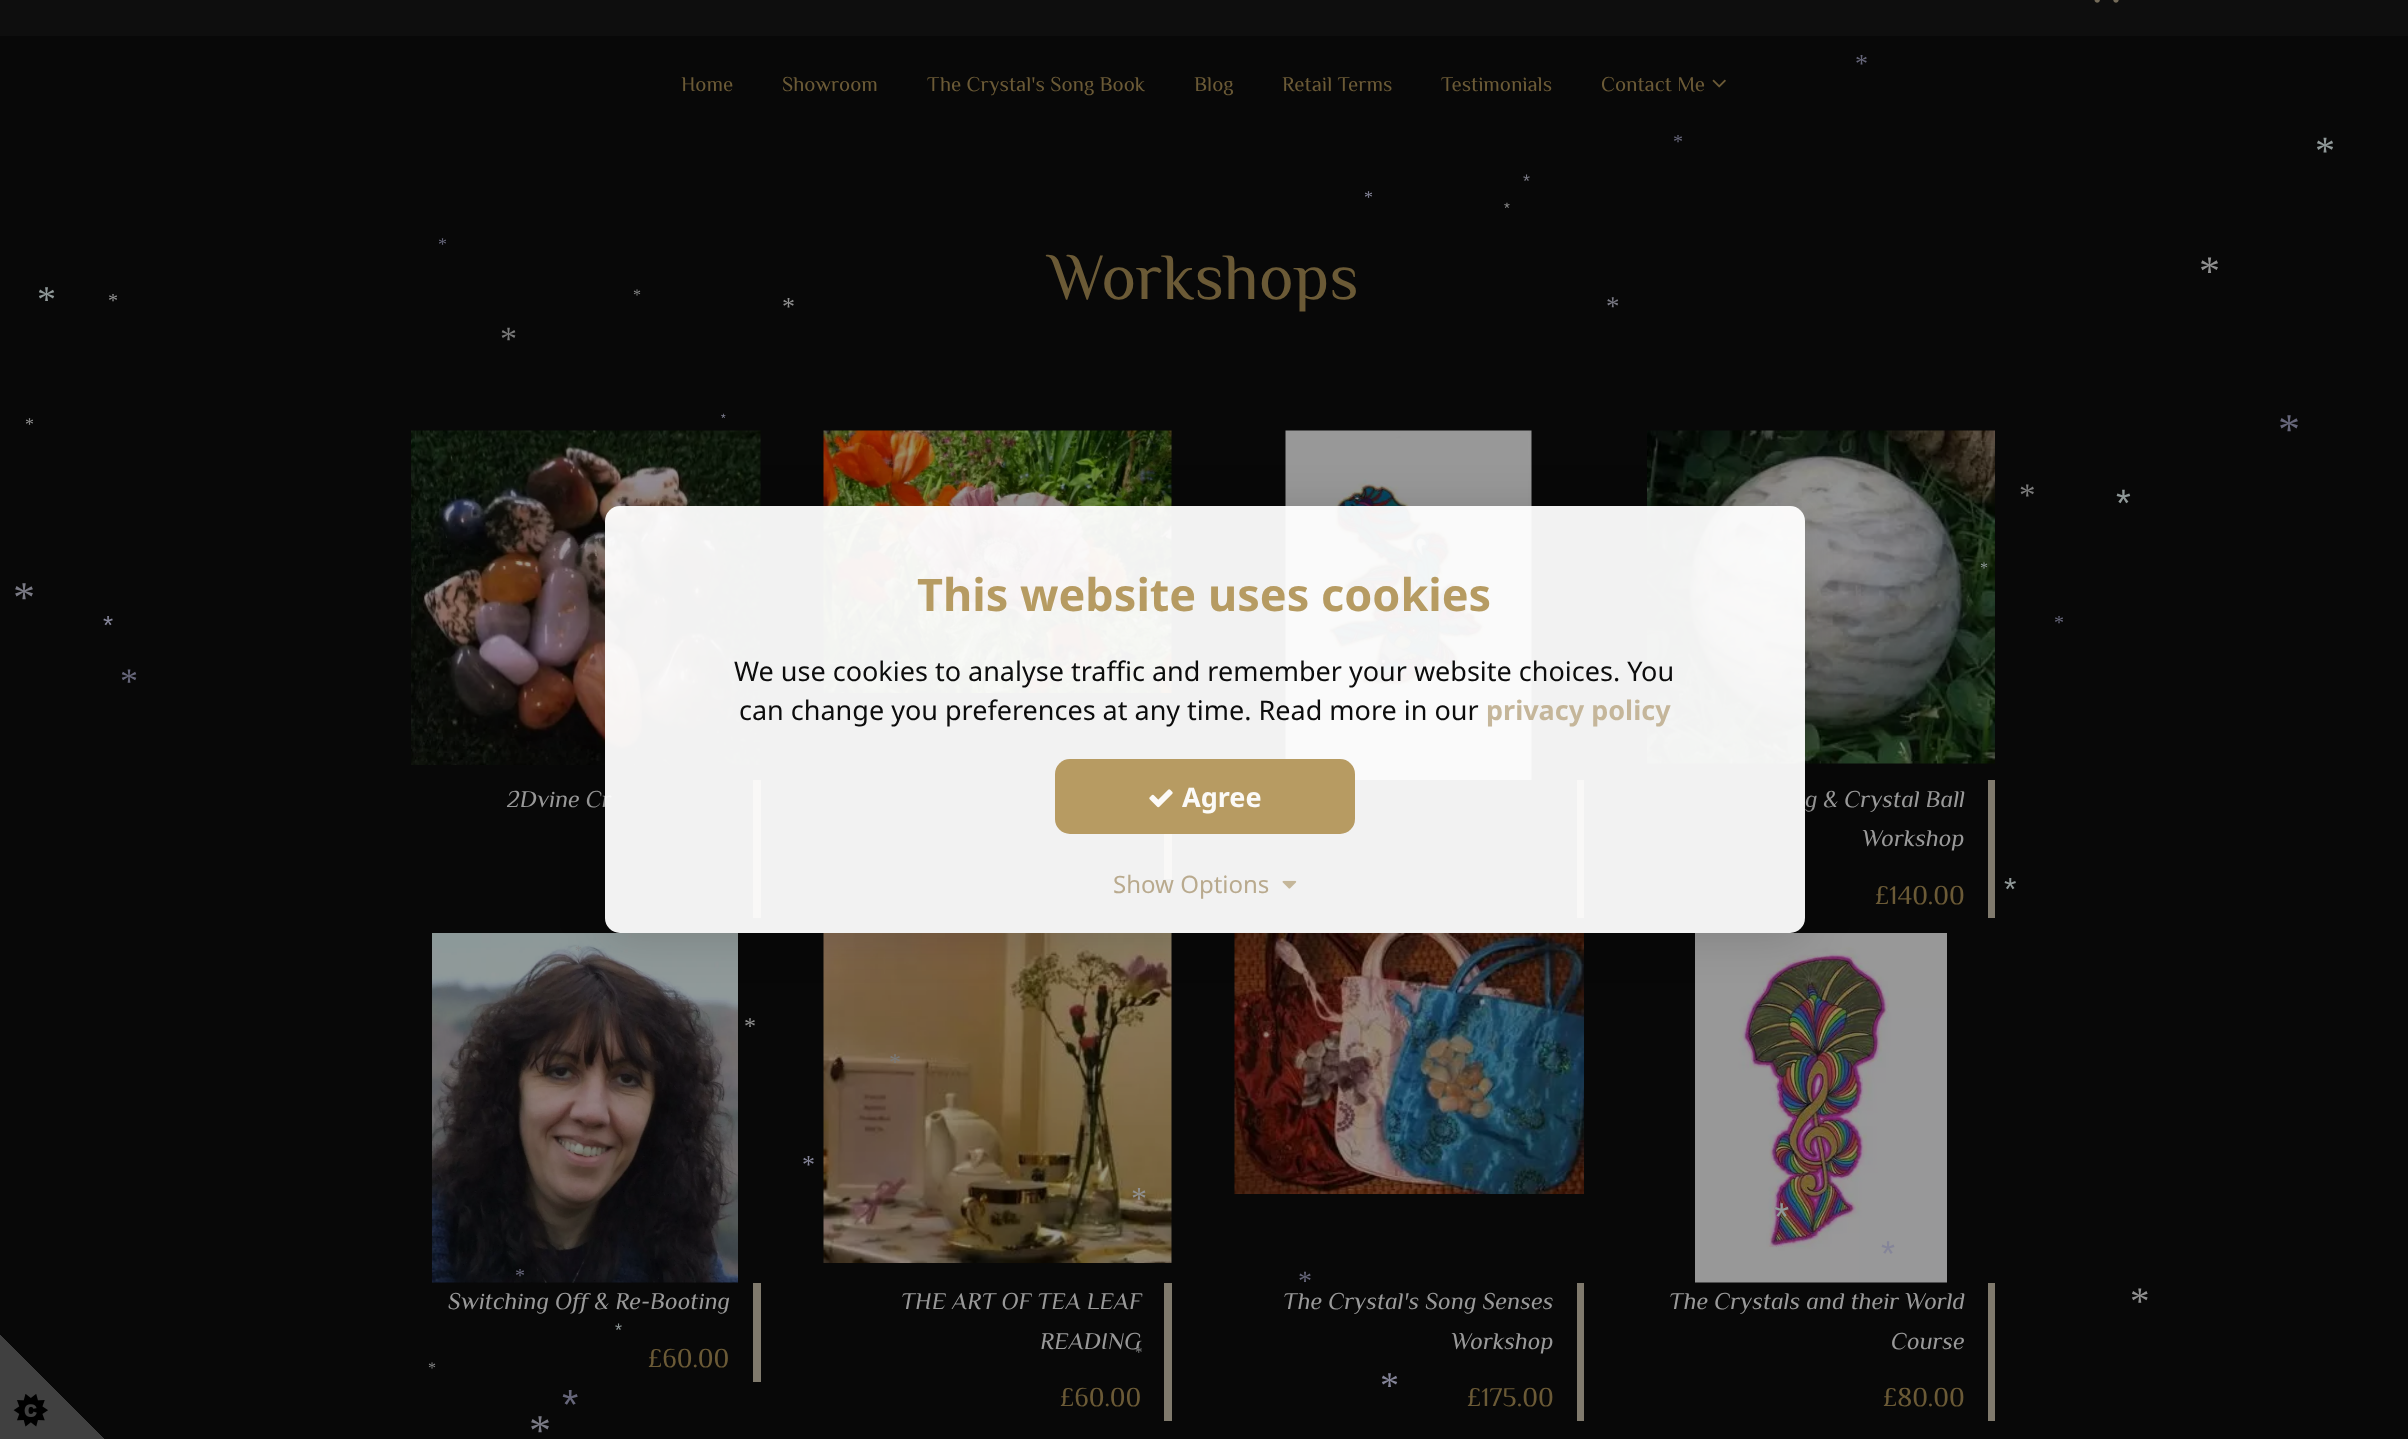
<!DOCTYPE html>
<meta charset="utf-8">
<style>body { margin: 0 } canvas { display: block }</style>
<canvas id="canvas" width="2408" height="1439"></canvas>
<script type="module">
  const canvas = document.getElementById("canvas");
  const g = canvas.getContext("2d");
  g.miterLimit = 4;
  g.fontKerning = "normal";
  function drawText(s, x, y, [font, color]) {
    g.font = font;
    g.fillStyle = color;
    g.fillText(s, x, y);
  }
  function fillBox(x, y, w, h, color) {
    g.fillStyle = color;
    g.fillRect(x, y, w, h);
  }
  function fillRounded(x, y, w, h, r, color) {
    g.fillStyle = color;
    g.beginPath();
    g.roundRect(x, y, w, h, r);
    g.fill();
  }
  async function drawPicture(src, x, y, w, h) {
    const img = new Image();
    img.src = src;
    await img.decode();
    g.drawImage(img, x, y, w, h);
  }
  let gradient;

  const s1 = ["26px Liberation Serif", "#66667A"];
  const s2 = ["21px Philosopher", "#6B5A36"];
  const s3 = ["66px Philosopher", "#6B5A36"];
  const s4 = ["italic 24px Philosopher", "#999999"];
  const s5 = ["27px Philosopher", "#6B5A36"];
  const s6 = ["bold 45px Noto Sans", "#B69B62"];
  const s7 = ["27px Noto Sans", "#0C0C0C"];
  const s8 = ["bold 27px Noto Sans", "#C5B69A"];
  const s9 = ["bold 27px Noto Sans", "#FBFAF7"];
  const s10 = ["24px Noto Sans", "#B9AA8E"];
  const s11 = ["20px Liberation Serif", "#66667A"];
  const s12 = ["40px Liberation Serif", "#909999"];
  const s13 = ["18px Liberation Sans", "#7A7A85"];
  const s14 = ["18px Liberation Serif", "#858599"];
  const s15 = ["15px Liberation Sans", "#909090"];
  const s16 = ["18px Liberation Serif", "#66667A"];
  const s17 = ["42px Liberation Serif", "#909090"];
  const s18 = ["38px Liberation Serif", "#909999"];
  const s19 = ["16px Liberation Serif", "#858686"];
  const s20 = ["20px Liberation Serif", "#909090"];
  const s21 = ["26px Liberation Serif", "#909090"];
  const s22 = ["27px Liberation Serif", "#7A7A85"];
  const s23 = ["34px Liberation Serif", "#7A7A7A"];
  const s24 = ["18px Liberation Serif", "#909090"];
  const s25 = ["12px Liberation Sans", "#858599"];
  const s26 = ["44px Liberation Serif", "#66667A"];
  const s27 = ["33px Liberation Serif", "#7A7A7A"];
  const s28 = ["38px Liberation Sans", "#909999"];
  const s29 = ["16px Liberation Serif", "#909999"];
  const s30 = ["44px Liberation Serif", "#7A7A85"];
  const s31 = ["26px Liberation Sans", "#858599"];
  const s32 = ["36px Liberation Serif", "#66667A"];
  const s33 = ["32px Liberation Sans", "#909999"];
  const s34 = ["14px Liberation Serif", "#858686"];
  const s35 = ["24px Liberation Serif", "#909090"];
  const s36 = ["24px Liberation Serif", "#7A7A7A"];
  const s37 = ["26px Liberation Serif", "#858599"];
  const s38 = ["32px Liberation Serif", "#909090"];
  const s39 = ["39px Liberation Sans", "#909999"];
  const s40 = ["36px Liberation Sans", "#858599"];
  const s41 = ["28px Liberation Serif", "#66667A"];
  const s42 = ["39px Liberation Serif", "#909090"];
  const s43 = ["18px Liberation Sans", "#909999"];
  const s44 = ["15px Liberation Serif", "#858686"];
  const s45 = ["38px Liberation Serif", "#858599"];
  const s46 = ["42px Liberation Sans", "#66667A"];

  fillBox(0, 0, 2408, 1439, "#080808");
  drawText("*", 1855, 72, s1);
  fillBox(0, 0, 2408, 36, "#0E0E0E");
  await drawPicture("pic1.png", 2094, 0, 25, 3);
  drawText("Home", 681, 91, s2);
  drawText("Showroom", 782, 91, s2);
  drawText("The Crystal's Song Book", 927, 91, s2);
  drawText("Blog", 1194, 91, s2);
  drawText("Retail Terms", 1282, 91, s2);
  drawText("Testimonials", 1441, 91, s2);
  drawText("Contact Me", 1601, 91, s2);
  await drawPicture("pic2.png", 1712, 79, 14, 9);
  drawText("Workshops", 1048, 299, s3);
  await drawPicture("pic3.png", 411, 430, 350, 335);
  fillBox(753, 780, 8, 138, "#807A6D");
  drawText("2Dvine Cr", 507, 807, s4);
  await drawPicture("pic4.png", 823, 430, 349, 263);
  fillBox(1164, 780, 8, 99, "#807A6D");
  await drawPicture("pic5.png", 1285, 430, 247, 350);
  fillBox(1577, 780, 7, 138, "#807A6D");
  await drawPicture("pic6.png", 1647, 430, 348, 334);
  fillBox(1988, 780, 7, 138, "#807A6D");
  drawText("g & Crystal Ball", 1805, 807, s4);
  drawText("Workshop", 1862, 846, s4);
  drawText("£140.00", 1875, 904, s5);
  await drawPicture("pic7.png", 432, 933, 306, 350);
  fillBox(753, 1283, 8, 99, "#807A6D");
  drawText("Switching Off & Re-Booting", 448, 1309, s4);
  drawText("£60.00", 648, 1367, s5);
  await drawPicture("pic8.png", 823, 933, 349, 330);
  fillBox(1164, 1283, 8, 138, "#807A6D");
  drawText("THE ART OF TEA LEAF", 901, 1309, s4);
  drawText("READING", 1040, 1349, s4);
  drawText("£60.00", 1060, 1406, s5);
  await drawPicture("pic9.png", 1234, 933, 350, 261);
  fillBox(1577, 1283, 7, 138, "#807A6D");
  drawText("The Crystal's Song Senses", 1283, 1309, s4);
  drawText("Workshop", 1451, 1349, s4);
  drawText("£175.00", 1467, 1406, s5);
  await drawPicture("pic10.png", 1695, 933, 252, 350);
  fillBox(1988, 1283, 7, 138, "#807A6D");
  drawText("The Crystals and their World", 1669, 1309, s4);
  drawText("Course", 1891, 1349, s4);
  drawText("£80.00", 1883, 1406, s5);
  g.save();
  g.beginPath();
  g.moveTo(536, 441);
  g.lineTo(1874, 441);
  g.lineTo(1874, 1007);
  g.lineTo(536, 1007);
  g.closePath();
  g.moveTo(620, 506);
  g.lineTo(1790, 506);
  g.bezierCurveTo(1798.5, 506, 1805, 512.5, 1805, 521);
  g.lineTo(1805, 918);
  g.bezierCurveTo(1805, 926.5, 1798.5, 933, 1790, 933);
  g.lineTo(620, 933);
  g.bezierCurveTo(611.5, 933, 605, 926.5, 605, 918);
  g.lineTo(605, 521);
  g.bezierCurveTo(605, 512.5, 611.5, 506, 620, 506);
  g.closePath();
  g.clip("evenodd");
  g.fillStyle = "rgba(0, 0, 0, 0.15)";
  g.filter = "blur(22.5px)";
  g.beginPath();
  g.roundRect(605, 510, 1200, 428, 15);
  g.fill();
  g.filter = "none";
  g.restore();
  fillRounded(605, 506, 1200, 427, 15, "rgba(255, 255, 255, 0.95)");
  drawText("This website uses cookies", 917, 611, s6);
  drawText("We use cookies to analyse traffic and remember your website choices. You", 734, 681, s7);
  drawText("can change you preferences at any time. Read more in our", 739, 720, s7);
  drawText("privacy policy", 1486, 720, s8);
  fillRounded(1055, 759, 300, 75, 15, "rgba(179, 150, 90, 0.95)");
  await drawPicture("pic11.png", 1149, 789, 24, 19);
  drawText("Agree", 1182, 807, s9);
  drawText("Show Options", 1113, 893, s10);
  await drawPicture("pic12.png", 1282, 880, 15, 9);
  gradient = g.createLinearGradient(105, 1335, 0, 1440);
  gradient.addColorStop(0.5, "#080808");
  gradient.addColorStop(0.5, "#404040");
  g.fillStyle = gradient;
  g.fillRect(0, 1335, 104, 104);
  await drawPicture("pic13.png", 13, 1394, 35, 33);
  drawText("*", 1673, 148, s11);
  drawText("*", 2315, 164, s12);
  drawText("*", 1523, 187, s13);
  drawText("*", 1364, 203, s14);
  drawText("*", 1504, 213, s15);
  drawText("*", 438, 250, s16);
  drawText("*", 2199, 285, s17);
  drawText("*", 37, 312, s18);
  drawText("*", 633, 300, s19);
  drawText("*", 108, 307, s20);
  drawText("*", 782, 315, s21);
  drawText("*", 1606, 315, s22);
  drawText("*", 500, 350, s23);
  drawText("*", 25, 430, s24);
  drawText("*", 721, 422, s25);
  drawText("*", 2278, 444, s26);
  drawText("*", 2019, 506, s27);
  drawText("*", 2116, 516, s28);
  drawText("*", 1980, 573, s29);
  drawText("*", 13, 612, s30);
  drawText("*", 103, 634, s31);
  drawText("*", 2054, 629, s11);
  drawText("*", 120, 693, s32);
  drawText("*", 2004, 900, s33);
  drawText("*", 575, 955, s34);
  drawText("*", 744, 1034, s35);
  drawText("*", 889, 1070, s36);
  drawText("*", 802, 1173, s37);
  drawText("*", 1131, 1209, s38);
  drawText("*", 1774, 1230, s39);
  drawText("*", 1881, 1266, s40);
  drawText("*", 515, 1282, s11);
  drawText("*", 1298, 1290, s41);
  drawText("*", 2130, 1314, s42);
  drawText("*", 615, 1336, s43);
  drawText("*", 1135, 1357, s44);
  drawText("*", 428, 1373, s19);
  drawText("*", 1380, 1398, s45);
  drawText("*", 562, 1419, s46);
  drawText("*", 529, 1445, s30);
</script>
